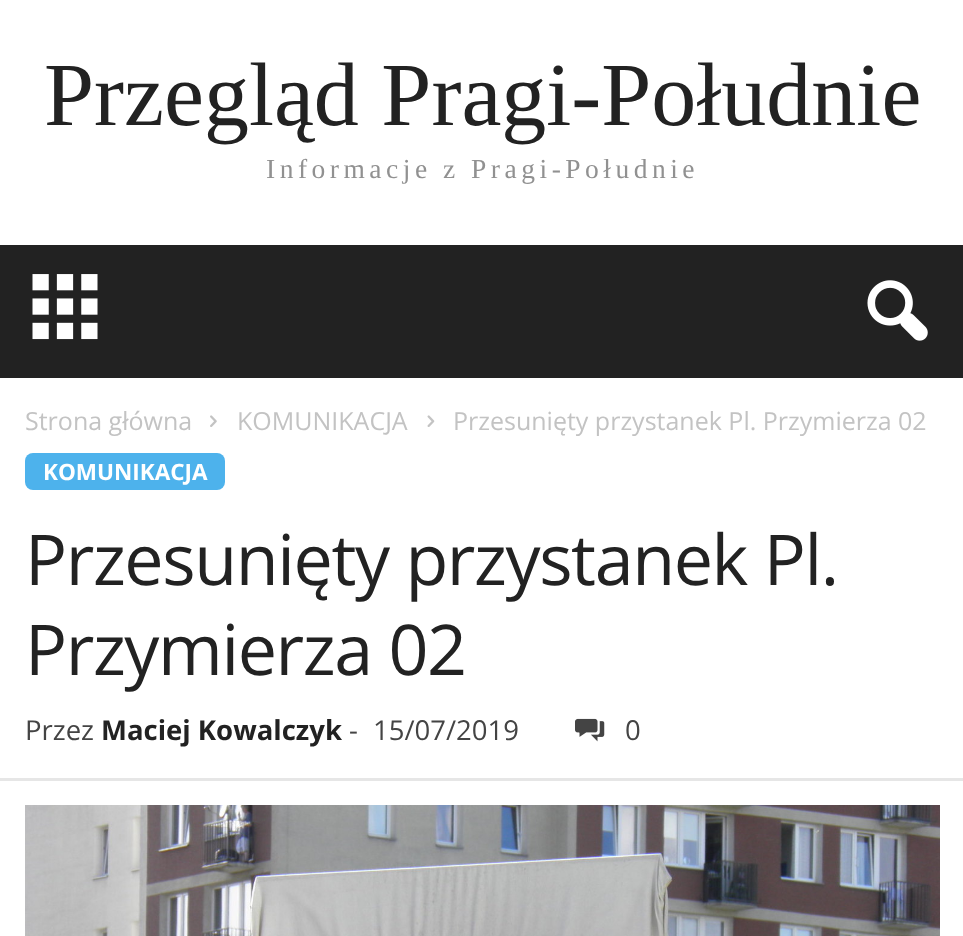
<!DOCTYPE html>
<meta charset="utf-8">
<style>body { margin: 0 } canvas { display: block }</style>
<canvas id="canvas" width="963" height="936"></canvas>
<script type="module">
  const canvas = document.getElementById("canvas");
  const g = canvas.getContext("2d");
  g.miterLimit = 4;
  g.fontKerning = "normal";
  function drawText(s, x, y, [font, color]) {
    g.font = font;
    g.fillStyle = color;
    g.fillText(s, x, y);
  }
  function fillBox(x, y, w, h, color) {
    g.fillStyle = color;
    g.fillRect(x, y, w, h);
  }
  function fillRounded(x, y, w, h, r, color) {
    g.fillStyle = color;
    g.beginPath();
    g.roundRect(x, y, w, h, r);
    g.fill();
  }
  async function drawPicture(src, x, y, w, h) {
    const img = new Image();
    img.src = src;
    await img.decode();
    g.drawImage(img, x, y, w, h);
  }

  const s1 = ["90px Liberation Serif", "#222222"];
  const s2 = ["27.5px Liberation Serif", "#919191"];
  const s3 = ["25px Open Sans", "#C3C3C3"];
  const s4 = ["bold 22.5px Open Sans", "#FFFFFF"];
  const s5 = ["70px Open Sans", "#222222"];
  const s6 = ["27.5px Open Sans", "#444444"];
  const s7 = ["bold 27.5px Open Sans", "#222222"];

  fillBox(0, 0, 963, 936, "#FFFFFF");
  drawText("Przegląd Pragi-Południe", 44, 125, s1);
  g.letterSpacing = "4.5px";
  drawText("Informacje z Pragi-Południe", 266, 178, s2);
  fillBox(0, 245, 963, 133, "#222222");
  await drawPicture("pic1.png", 32, 274, 66, 66);
  await drawPicture("pic2.png", 867, 280, 61, 61);
  g.letterSpacing = "0px";
  drawText("Strona główna", 25, 430, s3);
  await drawPicture("pic3.png", 210, 415, 7, 12);
  drawText("KOMUNIKACJA", 237, 430, s3);
  await drawPicture("pic4.png", 427, 415, 8, 12);
  drawText("Przesunięty przystanek Pl. Przymierza 02", 453, 430, s3);
  fillRounded(25, 453, 200, 37, 8, "#4DB2EC");
  drawText("KOMUNIKACJA", 43, 480, s4);
  g.letterSpacing = "-1.4px";
  drawText("Przesunięty przystanek Pl.", 25, 585, s5);
  drawText("Przymierza 02", 25, 675, s5);
  g.letterSpacing = "0px";
  drawText("Przez", 25, 740, s6);
  drawText("Maciej Kowalczyk", 101, 740, s7);
  drawText("-", 349, 740, s6);
  drawText("15/07/2019", 373, 740, s6);
  await drawPicture("pic5.png", 575, 718, 30, 24);
  drawText("0", 625, 740, s6);
  fillBox(0, 778, 963, 3, "#E6E6E6");
  await drawPicture("pic6.png", 25, 805, 915, 131);
</script>
